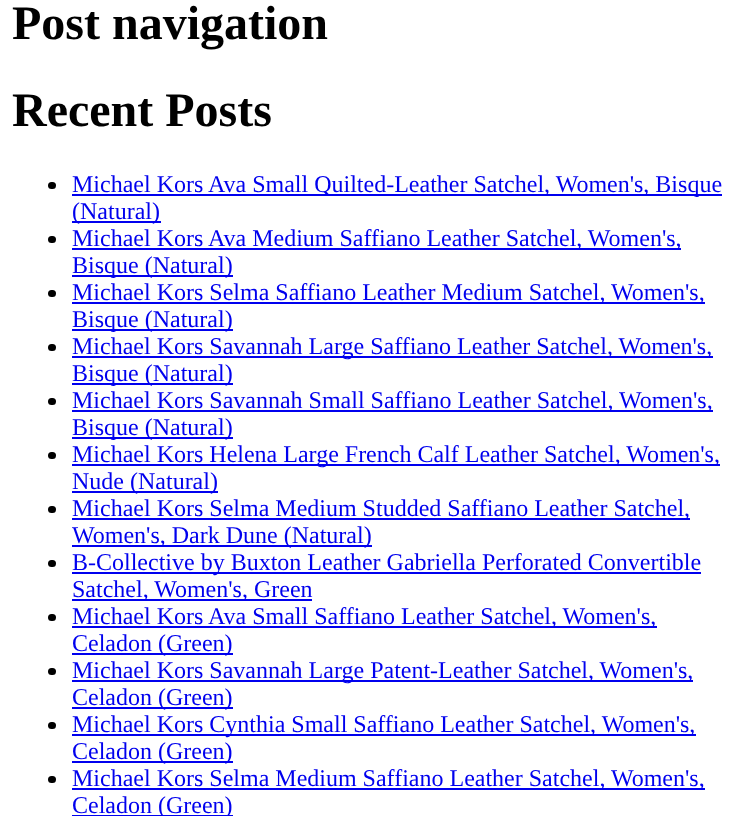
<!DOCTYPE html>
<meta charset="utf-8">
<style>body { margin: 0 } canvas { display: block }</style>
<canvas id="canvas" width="734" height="816"></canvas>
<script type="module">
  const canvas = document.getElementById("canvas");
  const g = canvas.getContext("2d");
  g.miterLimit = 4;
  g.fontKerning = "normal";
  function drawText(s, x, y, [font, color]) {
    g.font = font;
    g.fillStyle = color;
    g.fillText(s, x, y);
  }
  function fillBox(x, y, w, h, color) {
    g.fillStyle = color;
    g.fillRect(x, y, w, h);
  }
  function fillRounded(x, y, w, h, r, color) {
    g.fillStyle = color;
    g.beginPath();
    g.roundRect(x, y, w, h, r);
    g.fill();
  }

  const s1 = ["bold 48px Liberation Serif", "#000000"];
  const s2 = ["24px Liberation Serif", "#0000EE"];

  fillBox(0, 0, 734, 816, "#FFFFFF");
  drawText("Post navigation", 12, 39, s1);
  drawText("Recent Posts", 12, 126, s1);
  fillRounded(48, 182, 8, 7, 3.5, "#000000");
  fillBox(72, 194, 650, 2, "#0000EE");
  drawText("Michael Kors Ava Small Quilted-Leather Satchel, Women's, Bisque", 72, 192, s2);
  fillBox(72, 221, 89, 2, "#0000EE");
  drawText("(Natural)", 72, 219, s2);
  fillRounded(48, 236, 8, 7, 3.5, "#000000");
  fillBox(72, 248, 609, 2, "#0000EE");
  drawText("Michael Kors Ava Medium Saffiano Leather Satchel, Women's,", 72, 246, s2);
  fillBox(72, 275, 161, 2, "#0000EE");
  drawText("Bisque (Natural)", 72, 273, s2);
  fillRounded(48, 290, 8, 7, 3.5, "#000000");
  fillBox(72, 302, 633, 2, "#0000EE");
  drawText("Michael Kors Selma Saffiano Leather Medium Satchel, Women's,", 72, 300, s2);
  fillBox(72, 329, 161, 2, "#0000EE");
  drawText("Bisque (Natural)", 72, 327, s2);
  fillRounded(48, 344, 8, 7, 3.5, "#000000");
  fillBox(72, 356, 641, 2, "#0000EE");
  drawText("Michael Kors Savannah Large Saffiano Leather Satchel, Women's,", 72, 354, s2);
  fillBox(72, 383, 161, 2, "#0000EE");
  drawText("Bisque (Natural)", 72, 381, s2);
  fillRounded(48, 398, 8, 7, 3.5, "#000000");
  fillBox(72, 410, 641, 2, "#0000EE");
  drawText("Michael Kors Savannah Small Saffiano Leather Satchel, Women's,", 72, 408, s2);
  fillBox(72, 437, 161, 2, "#0000EE");
  drawText("Bisque (Natural)", 72, 435, s2);
  fillRounded(48, 452, 8, 7, 3.5, "#000000");
  fillBox(72, 464, 648, 2, "#0000EE");
  drawText("Michael Kors Helena Large French Calf Leather Satchel, Women's,", 72, 462, s2);
  fillBox(72, 491, 146, 2, "#0000EE");
  drawText("Nude (Natural)", 72, 489, s2);
  fillRounded(48, 506, 8, 7, 3.5, "#000000");
  fillBox(72, 518, 618, 2, "#0000EE");
  drawText("Michael Kors Selma Medium Studded Saffiano Leather Satchel,", 72, 516, s2);
  fillBox(72, 545, 300, 2, "#0000EE");
  drawText("Women's, Dark Dune (Natural)", 72, 543, s2);
  fillRounded(48, 560, 8, 7, 3.5, "#000000");
  fillBox(72, 572, 629, 2, "#0000EE");
  drawText("B-Collective by Buxton Leather Gabriella Perforated Convertible", 72, 570, s2);
  fillBox(72, 599, 240, 2, "#0000EE");
  drawText("Satchel, Women's, Green", 72, 597, s2);
  fillRounded(48, 614, 8, 7, 3.5, "#000000");
  fillBox(72, 626, 585, 2, "#0000EE");
  drawText("Michael Kors Ava Small Saffiano Leather Satchel, Women's,", 72, 624, s2);
  fillBox(72, 653, 161, 2, "#0000EE");
  drawText("Celadon (Green)", 72, 651, s2);
  fillRounded(48, 668, 8, 7, 3.5, "#000000");
  fillBox(72, 680, 621, 2, "#0000EE");
  drawText("Michael Kors Savannah Large Patent-Leather Satchel, Women's,", 72, 678, s2);
  fillBox(72, 707, 161, 2, "#0000EE");
  drawText("Celadon (Green)", 72, 705, s2);
  fillRounded(48, 722, 8, 7, 3.5, "#000000");
  fillBox(72, 734, 624, 2, "#0000EE");
  drawText("Michael Kors Cynthia Small Saffiano Leather Satchel, Women's,", 72, 732, s2);
  fillBox(72, 761, 161, 2, "#0000EE");
  drawText("Celadon (Green)", 72, 759, s2);
  fillRounded(48, 776, 8, 7, 3.5, "#000000");
  fillBox(72, 788, 633, 2, "#0000EE");
  drawText("Michael Kors Selma Medium Saffiano Leather Satchel, Women's,", 72, 786, s2);
  fillBox(72, 815, 161, 1, "#0000EE");
  drawText("Celadon (Green)", 72, 813, s2);
</script>
